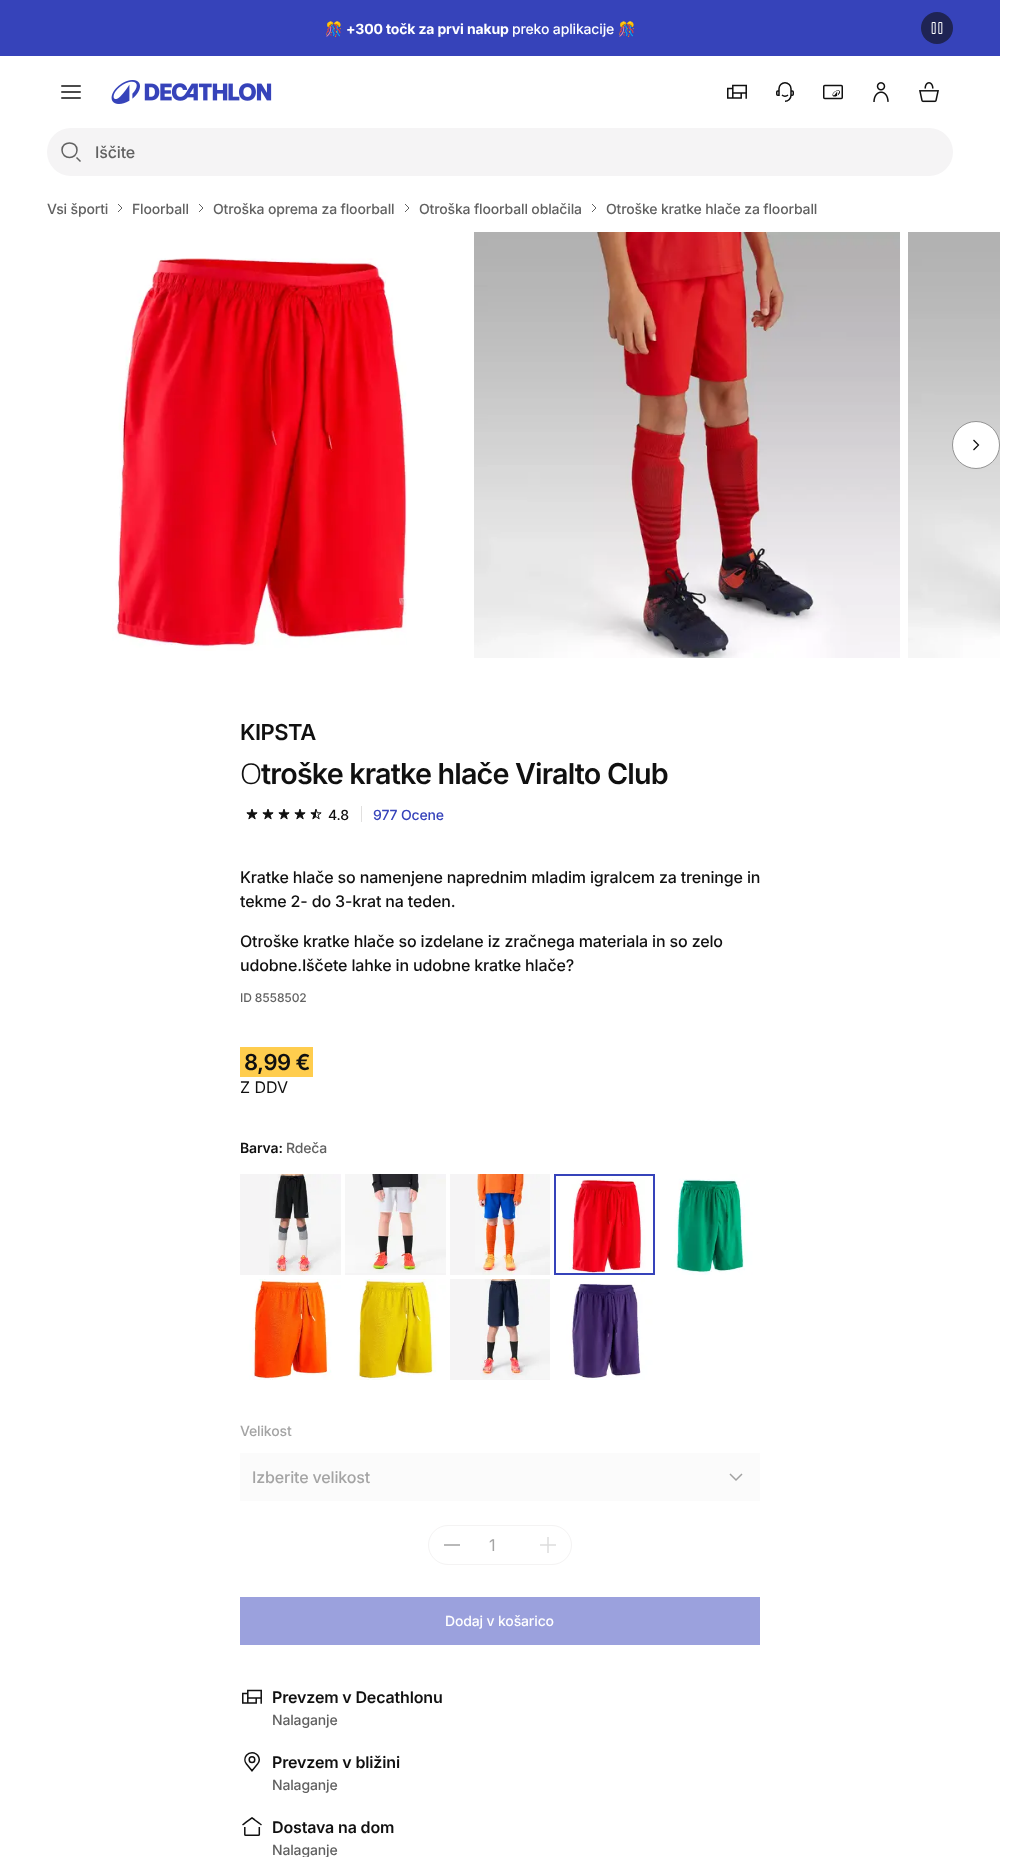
<!DOCTYPE html>
<meta charset="utf-8">
<style>body { margin: 0 } canvas { display: block }</style>
<canvas id="canvas" width="1015" height="1857"></canvas>
<script type="module">
  const canvas = document.getElementById("canvas");
  const g = canvas.getContext("2d");
  g.miterLimit = 4;
  g.fontKerning = "normal";
  function drawText(s, x, y, [font, color]) {
    g.font = font;
    g.fillStyle = color;
    g.fillText(s, x, y);
  }
  function fillBox(x, y, w, h, color) {
    g.fillStyle = color;
    g.fillRect(x, y, w, h);
  }
  function fillRounded(x, y, w, h, r, color) {
    g.fillStyle = color;
    g.beginPath();
    g.roundRect(x, y, w, h, r);
    g.fill();
  }
  async function drawPicture(src, x, y, w, h) {
    const img = new Image();
    img.src = src;
    await img.decode();
    g.drawImage(img, x, y, w, h);
  }

  const s1 = ["14px Noto Color Emoji", "#FFFFFF"];
  const s2 = ["bold 14px Inter", "#FFFFFF"];
  const s3 = ["500 14px Inter", "#FFFFFF"];
  const s4 = ["500 16px Inter", "#616161"];
  const s5 = ["500 14px Inter", "#616161"];
  const s6 = ["600 22px Inter", "#101010"];
  const s7 = ["300 28.75px Noto Sans", "#101010"];
  const s8 = ["600 28.75px Inter", "#101010"];
  const s9 = ["500 14px Inter", "#101010"];
  const s10 = ["500 14px Inter", "#3643BA"];
  const s11 = ["500 16px Inter", "#101010"];
  const s12 = ["500 12px Inter", "#616161"];
  const s13 = ["16px Inter", "#101010"];
  const s14 = ["600 14px Inter", "#101010"];
  const s15 = ["500 14px Inter", "#A4A4A4"];
  const s16 = ["500 16px Inter", "#A4A4A4"];
  const s17 = ["16px Inter", "#A4A4A4"];
  const s18 = ["600 16px Inter", "#101010"];

  fillBox(0, 0, 1015, 1857, "#FFFFFF");
  fillBox(0, 0, 1000, 56, "#3643BA");
  g.letterSpacing = "-0.15px";
  drawText("🎊", 325, 34, s1);
  drawText("+300 točk za prvi nakup", 346, 34, s2);
  drawText("preko aplikacije", 512, 34, s3);
  drawText("🎊", 618, 34, s1);
  g.fillStyle = "#1F2454";
  g.beginPath();
  g.arc(937, 28, 16, 0, Math.PI * 2);
  g.fill();
  await drawPicture("pic1.png", 931, 22, 12, 12);
  g.beginPath();
  g.moveTo(62, 92);
  g.lineTo(80, 92);
  g.moveTo(62, 86);
  g.lineTo(80, 86);
  g.moveTo(62, 98);
  g.lineTo(80, 98);
  g.strokeStyle = "#101010";
  g.lineWidth = 1.5;
  g.lineCap = "square";
  g.stroke();
  await drawPicture("pic2.png", 111, 80, 161, 24);
  await drawPicture("pic3.png", 727, 84, 20, 15);
  await drawPicture("pic4.png", 776, 82, 18, 20);
  await drawPicture("pic5.png", 823, 84, 20, 16);
  await drawPicture("pic6.png", 873, 82, 16, 20);
  await drawPicture("pic7.png", 919, 82, 20, 21);
  fillRounded(47, 128, 906, 48, 24, "#F5F4F5");
  g.beginPath();
  g.moveTo(80.5, 161.5);
  g.lineTo(76.5, 157.5);
  g.moveTo(77, 150);
  g.bezierCurveTo(77, 160, 62, 160, 62, 150);
  g.bezierCurveTo(62, 140.5, 77, 140.5, 77, 150);
  g.closePath();
  g.strokeStyle = "#616161";
  g.lineCap = "butt";
  g.stroke();
  drawText("Iščite", 95, 158, s4);
  drawText("Vsi športi", 47, 214, s5);
  await drawPicture("pic8.png", 118, 204, 4, 8);
  drawText("Floorball", 132, 214, s5);
  await drawPicture("pic8.png", 199, 204, 4, 8);
  drawText("Otroška oprema za floorball", 213, 214, s5);
  await drawPicture("pic8.png", 405, 204, 4, 8);
  drawText("Otroška floorball oblačila", 419, 214, s5);
  await drawPicture("pic8.png", 592, 204, 4, 8);
  drawText("Otroške kratke hlače za floorball", 606, 214, s5);
  await drawPicture("pic9.png", 112, 258, 295, 393);
  await drawPicture("pic10.png", 474, 232, 426, 426);
  await drawPicture("pic11.png", 908, 232, 92, 426);
  g.fillStyle = "#FFFFFF";
  g.beginPath();
  g.arc(976, 445, 23.5, 0, Math.PI * 2);
  g.fill();
  g.strokeStyle = "#949494";
  g.lineWidth = 1;
  g.stroke();
  await drawPicture("pic12.png", 973, 439, 7, 12);
  g.letterSpacing = "-0.5px";
  drawText("KIPSTA", 240, 740, s6);
  g.letterSpacing = "-0.85px";
  drawText("O", 240, 784, s7);
  drawText("troške kratke hlače Viralto Club", 261, 784, s8);
  await drawPicture("pic13.png", 246, 809, 12, 11);
  await drawPicture("pic14.png", 262, 809, 12, 11);
  await drawPicture("pic14.png", 278, 809, 12, 11);
  await drawPicture("pic14.png", 294, 809, 12, 11);
  await drawPicture("pic15.png", 310, 809, 12, 11);
  g.letterSpacing = "-0.15px";
  drawText("4.8", 328, 820, s9);
  fillBox(361, 806, 1, 16, "#E1E0DF");
  drawText("977 Ocene", 373, 820, s10);
  drawText("Kratke hlače so namenjene naprednim mladim igralcem za treninge in", 240, 883, s11);
  drawText("tekme 2- do 3-krat na teden.", 240, 907, s11);
  drawText("Otroške kratke hlače so izdelane iz zračnega materiala in so zelo", 240, 947, s11);
  drawText("udobne.Iščete lahke in udobne kratke hlače?", 240, 971, s11);
  g.letterSpacing = "-0.1px";
  drawText("ID 8558502", 240, 1002, s12);
  fillBox(240, 1047, 73, 30, "#FFCD4E");
  g.letterSpacing = "-0.5px";
  drawText("8,99 €", 244, 1070, s6);
  g.letterSpacing = "0px";
  drawText("Z DDV", 240, 1093, s13);
  g.letterSpacing = "-0.15px";
  drawText("Barva:", 240, 1153, s14);
  drawText("Rdeča", 286, 1153, s5);
  fillBox(240, 1174, 29, 101, "#F5F4F5");
  await drawPicture("pic16.png", 269, 1174, 72, 101);
  fillBox(345, 1273, 101, 2, "#F5F4F5");
  await drawPicture("pic17.png", 345, 1174, 101, 99);
  fillBox(450, 1174, 25, 101, "#F5F4F5");
  await drawPicture("pic18.png", 475, 1174, 75, 101);
  await drawPicture("pic19.png", 556, 1176, 97, 97);
  g.strokeStyle = "#3643BA";
  g.lineWidth = 2;
  g.strokeRect(555, 1175, 99, 99);
  await drawPicture("pic20.png", 659, 1174, 101, 101);
  await drawPicture("pic21.png", 240, 1279, 101, 101);
  await drawPicture("pic22.png", 345, 1279, 101, 101);
  fillBox(450, 1279, 100, 101, "#F5F4F5");
  await drawPicture("pic23.png", 480, 1279, 70, 100);
  await drawPicture("pic24.png", 554, 1279, 101, 101);
  drawText("Velikost", 240, 1436, s15);
  fillBox(240, 1453, 520, 48, "#FBFBFB");
  drawText("Izberite velikost", 252, 1483, s16);
  await drawPicture("pic25.png", 729, 1473, 14, 8);
  fillBox(444, 1544, 16, 2, "#B9B9B9");
  g.beginPath();
  g.roundRect(428.5, 1525.5, 143, 39, 19.5);
  g.strokeStyle = "#F4F3F3";
  g.lineWidth = 1;
  g.stroke();
  g.letterSpacing = "0px";
  drawText("1", 489, 1551, s17);
  await drawPicture("pic26.png", 540, 1537, 16, 16);
  fillBox(240, 1597, 520, 48, "#9BA1DD");
  g.letterSpacing = "-0.15px";
  drawText("Dodaj v košarico", 445, 1626, s3);
  await drawPicture("pic27.png", 242, 1689, 20, 15);
  drawText("Prevzem v Decathlonu", 272, 1703, s18);
  drawText("Nalaganje", 272, 1725, s5);
  await drawPicture("pic28.png", 244, 1752, 16, 20);
  drawText("Prevzem v bližini", 272, 1768, s18);
  drawText("Nalaganje", 272, 1790, s5);
  await drawPicture("pic29.png", 242, 1817, 20, 19);
  drawText("Dostava na dom", 272, 1833, s18);
  drawText("Nalaganje", 272, 1855, s5);
</script>
